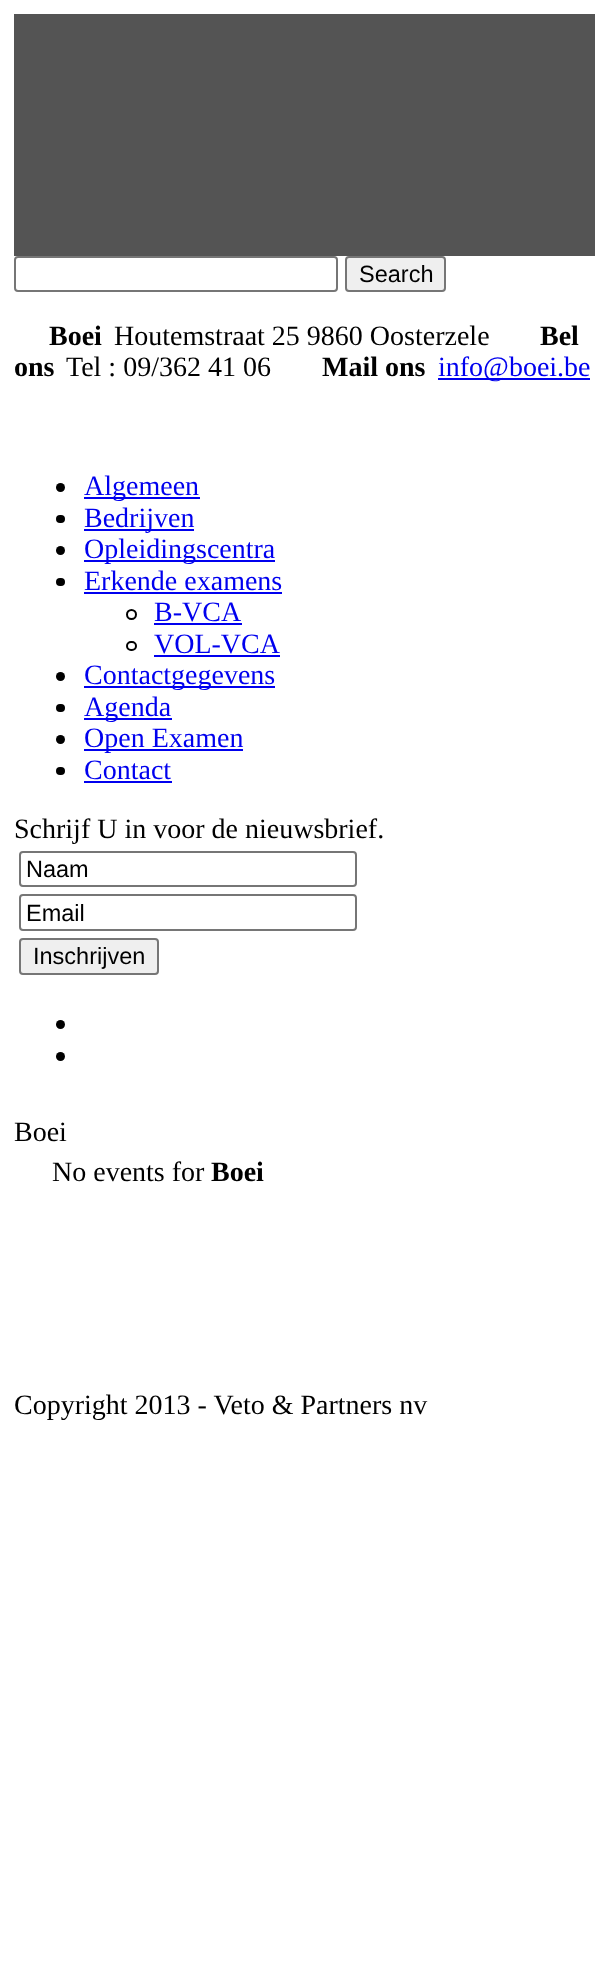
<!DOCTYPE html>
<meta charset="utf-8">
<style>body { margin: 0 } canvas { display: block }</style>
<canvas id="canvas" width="609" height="1965"></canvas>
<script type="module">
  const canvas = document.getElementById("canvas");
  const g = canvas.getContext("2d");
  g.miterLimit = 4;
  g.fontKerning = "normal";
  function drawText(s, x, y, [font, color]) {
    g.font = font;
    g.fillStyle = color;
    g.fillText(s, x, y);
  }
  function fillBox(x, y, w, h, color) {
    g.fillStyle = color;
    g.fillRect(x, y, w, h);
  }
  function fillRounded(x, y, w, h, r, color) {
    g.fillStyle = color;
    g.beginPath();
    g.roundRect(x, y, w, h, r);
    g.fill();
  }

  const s1 = ["23.5px Liberation Sans", "#000000"];
  const s2 = ["bold 28px Liberation Serif", "#000000"];
  const s3 = ["28px Liberation Serif", "#000000"];
  const s4 = ["28px Liberation Serif", "#0000EE"];

  fillBox(0, 0, 609, 1965, "#FFFFFF");
  fillBox(14, 14, 581, 242, "#545454");
  g.beginPath();
  g.roundRect(15, 257, 322, 34, 3);
  g.strokeStyle = "#767676";
  g.lineWidth = 2;
  g.stroke();
  g.fillStyle = "#EFEFEF";
  g.beginPath();
  g.roundRect(346, 257, 99, 34, 3);
  g.fill();
  g.stroke();
  drawText("Search", 359, 282, s1);
  drawText("Boei", 49, 345, s2);
  drawText("Houtemstraat 25 9860 Oosterzele", 114, 345, s3);
  drawText("Bel", 540, 345, s2);
  drawText("ons", 14, 376, s2);
  drawText("Tel : 09/362 41 06", 66, 376, s3);
  drawText("Mail ons", 322, 376, s2);
  fillBox(438, 378, 152, 2, "#0000EE");
  drawText("info@boei.be", 438, 376, s4);
  g.fillStyle = "#000000";
  g.beginPath();
  g.arc(60.5, 487.5, 4.5, 0, Math.PI * 2);
  g.fill();
  fillBox(84, 497, 116, 2, "#0000EE");
  drawText("Algemeen", 84, 495, s4);
  fillRounded(56, 515, 9, 8, 4, "#000000");
  fillBox(84, 529, 110, 2, "#0000EE");
  drawText("Bedrijven", 84, 527, s4);
  g.fillStyle = "#000000";
  g.beginPath();
  g.arc(60.5, 550.5, 4.5, 0, Math.PI * 2);
  g.fill();
  fillBox(84, 560, 191, 2, "#0000EE");
  drawText("Opleidingscentra", 84, 558, s4);
  fillRounded(56, 578, 9, 8, 4, "#000000");
  drawText("Erkende examens", 84, 590, s4);
  fillBox(84, 592, 198, 2, "#0000EE");
  g.beginPath();
  g.arc(131.5, 614.5, 4.5, 0, Math.PI * 2);
  g.strokeStyle = "#000000";
  g.stroke();
  drawText("B-VCA", 154, 621, s4);
  fillBox(154, 623, 88, 2, "#0000EE");
  g.beginPath();
  g.roundRect(127, 642, 9, 8, 4);
  g.stroke();
  drawText("VOL-VCA", 154, 653, s4);
  fillBox(154, 655, 126, 2, "#0000EE");
  g.fillStyle = "#000000";
  g.beginPath();
  g.arc(60.5, 676.5, 4.5, 0, Math.PI * 2);
  g.fill();
  fillBox(84, 686, 191, 2, "#0000EE");
  drawText("Contactgegevens", 84, 684, s4);
  fillRounded(56, 704, 9, 8, 4, "#000000");
  fillBox(84, 718, 88, 2, "#0000EE");
  drawText("Agenda", 84, 716, s4);
  g.fillStyle = "#000000";
  g.beginPath();
  g.arc(60.5, 739.5, 4.5, 0, Math.PI * 2);
  g.fill();
  fillBox(84, 749, 159, 2, "#0000EE");
  drawText("Open Examen", 84, 747, s4);
  fillRounded(56, 767, 9, 8, 4, "#000000");
  drawText("Contact", 84, 779, s4);
  fillBox(84, 781, 88, 2, "#0000EE");
  drawText("Schrijf U in voor de nieuwsbrief.", 14, 838, s3);
  g.beginPath();
  g.roundRect(20, 852, 336, 34, 3);
  g.strokeStyle = "#767676";
  g.stroke();
  drawText("Naam", 26, 877, s1);
  g.beginPath();
  g.roundRect(20, 895, 336, 35, 3);
  g.stroke();
  drawText("Email", 26, 921, s1);
  g.fillStyle = "#EFEFEF";
  g.beginPath();
  g.roundRect(20, 939, 138, 35, 3);
  g.fill();
  g.stroke();
  drawText("Inschrijven", 33, 964, s1);
  g.beginPath();
  g.arc(60.5, 1024.5, 4.5, 0, Math.PI * 2);
  g.fill();
  g.beginPath();
  g.arc(60.5, 1056.5, 4.5, 0, Math.PI * 2);
  g.fill();
  drawText("Boei", 14, 1141, s3);
  drawText("No events for", 52, 1181, s3);
  drawText("Boei", 211, 1181, s2);
  drawText("Copyright 2013 - Veto & Partners nv", 14, 1414, s3);
</script>
